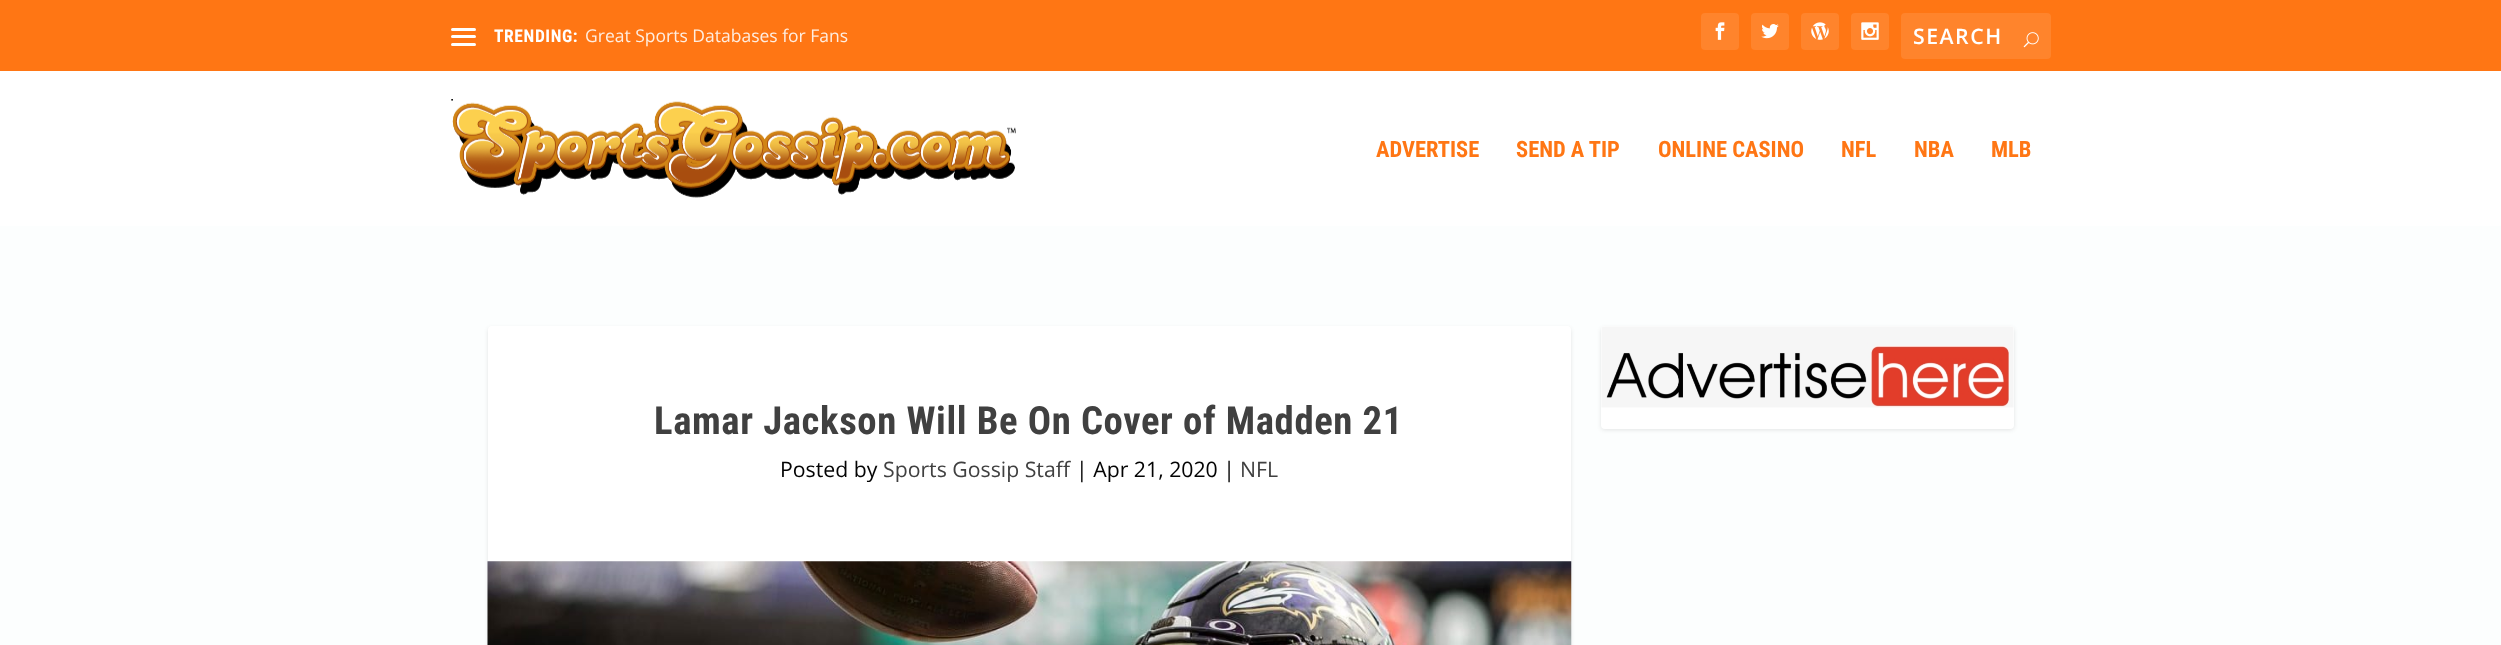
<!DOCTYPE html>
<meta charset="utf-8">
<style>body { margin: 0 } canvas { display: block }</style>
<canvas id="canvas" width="2501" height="645"></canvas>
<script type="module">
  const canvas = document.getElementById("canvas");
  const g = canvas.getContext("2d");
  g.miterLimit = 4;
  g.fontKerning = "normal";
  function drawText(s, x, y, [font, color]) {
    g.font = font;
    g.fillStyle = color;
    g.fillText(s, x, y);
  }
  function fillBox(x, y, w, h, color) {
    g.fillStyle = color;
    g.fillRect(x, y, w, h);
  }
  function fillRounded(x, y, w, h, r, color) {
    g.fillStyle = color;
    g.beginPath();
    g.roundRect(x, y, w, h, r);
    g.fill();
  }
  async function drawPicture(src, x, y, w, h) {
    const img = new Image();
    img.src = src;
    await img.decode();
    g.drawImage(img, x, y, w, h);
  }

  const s1 = ["bold 17.5px Roboto Condensed", "#FFFFFF"];
  const s2 = ["17.5px Open Sans", "#FFEDE0"];
  const s3 = ["600 21.25px Open Sans", "#FFFFFF"];
  const s4 = ["bold 22.5px Roboto Condensed", "#FF7614"];
  const s5 = ["bold 38.75px Roboto Condensed", "#404040"];
  const s6 = ["21.25px Open Sans", "#030303"];
  const s7 = ["21.25px Open Sans", "#404040"];

  fillBox(0, 0, 2501, 645, "#FCFEFE");
  fillBox(0, 0, 2501, 71, "#FF7614");
  fillRounded(451, 28, 25, 3, 1.5, "#FFFFFF");
  fillRounded(451, 35, 25, 3, 1.5, "#FFFFFF");
  fillRounded(451, 43, 25, 3, 1.5, "#FFFFFF");
  g.letterSpacing = "0.6px";
  drawText("TRENDING:", 494, 42, s1);
  g.letterSpacing = "0px";
  drawText("Great Sports Databases for Fans", 585, 42, s2);
  fillRounded(1701, 13, 38, 37, 4, "#FF842C");
  await drawPicture("pic1.png", 1715, 22, 10, 18);
  fillRounded(1751, 13, 38, 37, 4, "#FF842C");
  await drawPicture("pic2.png", 1761, 24, 18, 15);
  fillRounded(1801, 13, 38, 37, 4, "#FF842C");
  await drawPicture("pic3.png", 1811, 22, 18, 18);
  fillRounded(1851, 13, 38, 37, 4, "#FF842C");
  await drawPicture("pic4.png", 1861, 22, 18, 18);
  fillRounded(1901, 13, 150, 46, 4, "#FF842C");
  g.letterSpacing = "1.5px";
  drawText("SEARCH", 1913, 44, s3);
  await drawPicture("pic5.png", 2023, 32, 16, 16);
  fillBox(0, 71, 2501, 155, "#FFFFFF");
  await drawPicture("pic6.png", 451, 99, 565, 99);
  g.letterSpacing = "0px";
  drawText("ADVERTISE", 1376, 157, s4);
  drawText("SEND A TIP", 1516, 157, s4);
  drawText("ONLINE CASINO", 1658, 157, s4);
  drawText("NFL", 1841, 157, s4);
  drawText("NBA", 1914, 157, s4);
  drawText("MLB", 1991, 157, s4);
  g.fillStyle = "rgba(0, 0, 0, 0.1)";
  g.filter = "blur(2px)";
  g.beginPath();
  g.roundRect(488, 328, 1083, 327, 4);
  g.fill();
  g.filter = "none";
  fillRounded(488, 326, 1083, 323, 4, "#FFFFFF");
  g.letterSpacing = "0.6px";
  drawText("Lamar Jackson Will Be On Cover of Madden 21", 654, 434, s5);
  g.letterSpacing = "0px";
  drawText("Posted by", 780, 477, s6);
  drawText("Sports Gossip Staff", 883, 477, s7);
  drawText("| Apr 21, 2020 |", 1076, 477, s6);
  drawText("NFL", 1240, 477, s7);
  await drawPicture("pic7.png", 487, 561, 1085, 84);
  g.fillStyle = "rgba(0, 0, 0, 0.1)";
  g.filter = "blur(2px)";
  g.beginPath();
  g.roundRect(1601, 328, 413, 102, 4);
  g.fill();
  g.filter = "none";
  fillRounded(1601, 326, 413, 103, 4, "#FFFFFF");
  await drawPicture("pic8.png", 1601, 326, 413, 82);
</script>
